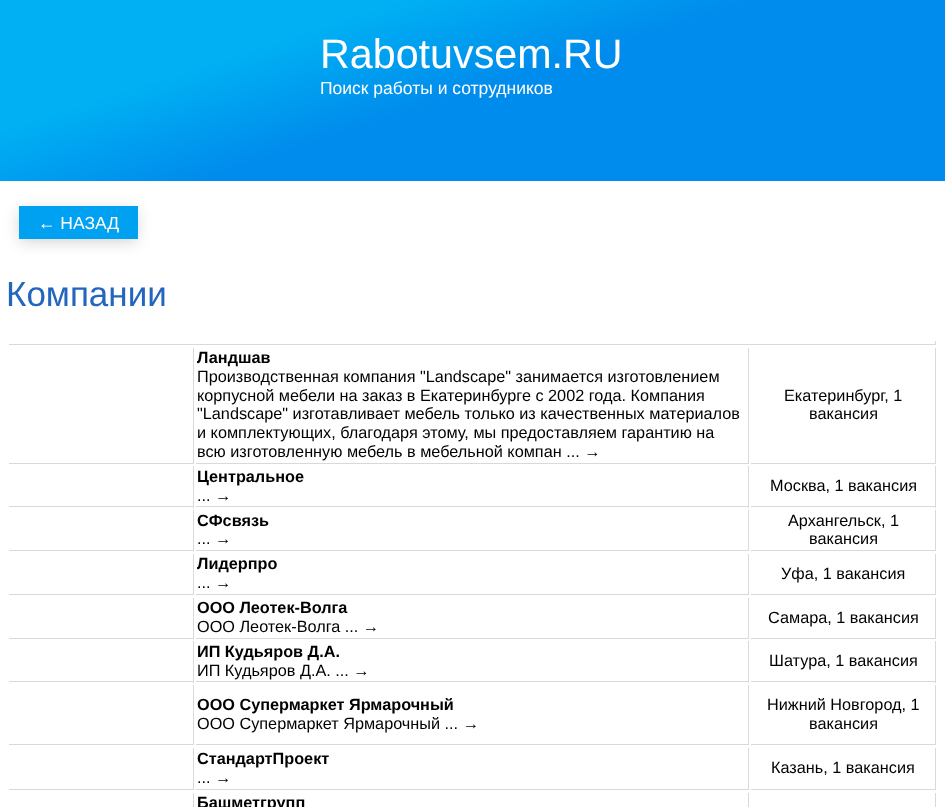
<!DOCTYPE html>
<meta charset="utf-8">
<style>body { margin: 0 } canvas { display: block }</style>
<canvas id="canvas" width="945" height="807"></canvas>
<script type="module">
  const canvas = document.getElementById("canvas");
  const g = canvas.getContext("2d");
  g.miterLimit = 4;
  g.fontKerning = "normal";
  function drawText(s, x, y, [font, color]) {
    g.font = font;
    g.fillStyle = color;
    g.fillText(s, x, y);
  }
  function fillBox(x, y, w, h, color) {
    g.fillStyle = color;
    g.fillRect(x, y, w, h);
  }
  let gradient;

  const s1 = ["41.25px Liberation Sans", "#FFFFFF"];
  const s2 = ["17.5px Liberation Sans", "#FFFFFF"];
  const s3 = ["35px Liberation Sans", "#2266BE"];
  const s4 = ["bold 16.25px Liberation Sans", "#000000"];
  const s5 = ["16.25px Liberation Sans", "#000000"];

  fillBox(0, 0, 945, 807, "#FFFFFF");
  gradient = g.createLinearGradient(401, -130, 544, 311);
  gradient.addColorStop(0.27, "#00B0F3");
  gradient.addColorStop(0.5, "#008CEC");
  g.fillStyle = gradient;
  g.fillRect(0, 0, 945, 181);
  drawText("Rabotuvsem.RU", 320, 68, s1);
  drawText("Поиск работы и сотрудников", 320, 94, s2);
  g.fillStyle = "rgba(7, 10, 25, 0.2)";
  g.filter = "blur(7.5px)";
  g.beginPath();
  g.rect(20, 211, 116, 30);
  g.fill();
  g.filter = "none";
  fillBox(19, 206, 119, 33, "#00A1F1");
  drawText("← НАЗАД", 38, 229, s2);
  drawText("Компании", 6, 306, s3);
  fillBox(935, 341, 1, 4, "#D9D9D9");
  fillBox(9, 344, 927, 1, "#D9D9D9");
  fillBox(193, 348, 1, 116, "#D9D9D9");
  fillBox(9, 463, 185, 1, "#D9D9D9");
  fillBox(748, 348, 1, 116, "#D9D9D9");
  fillBox(196, 463, 553, 1, "#D9D9D9");
  drawText("Ландшав", 197, 363, s4);
  drawText("Производственная компания \"Landscape\" занимается изготовлением", 197, 382, s5);
  drawText("корпусной мебели на заказ в Екатеринбурге с 2002 года. Компания", 197, 401, s5);
  drawText("\"Landscape\" изготавливает мебель только из качественных материалов", 197, 419, s5);
  drawText("и комплектующих, благодаря этому, мы предоставляем гарантию на", 197, 438, s5);
  drawText("всю изготовленную мебель в мебельной компан ... →", 197, 457, s5);
  fillBox(935, 348, 1, 116, "#D9D9D9");
  fillBox(751, 463, 185, 1, "#D9D9D9");
  drawText("Екатеринбург, 1", 784, 401, s5);
  drawText("вакансия", 809, 419, s5);
  fillBox(193, 466, 1, 42, "#D9D9D9");
  fillBox(9, 506, 185, 1, "#D9D9D9");
  fillBox(748, 466, 1, 42, "#D9D9D9");
  fillBox(196, 506, 553, 1, "#D9D9D9");
  drawText("Центральное", 197, 482, s4);
  drawText("... →", 197, 501, s5);
  fillBox(935, 466, 1, 42, "#D9D9D9");
  fillBox(751, 506, 185, 1, "#D9D9D9");
  drawText("Москва, 1 вакансия", 770, 491, s5);
  fillBox(193, 510, 1, 41, "#D9D9D9");
  fillBox(9, 550, 185, 1, "#D9D9D9");
  fillBox(748, 510, 1, 41, "#D9D9D9");
  fillBox(196, 550, 553, 1, "#D9D9D9");
  drawText("CФсвязь", 197, 526, s4);
  drawText("... →", 197, 544, s5);
  fillBox(935, 510, 1, 41, "#D9D9D9");
  fillBox(751, 550, 185, 1, "#D9D9D9");
  drawText("Архангельск, 1", 788, 526, s5);
  drawText("вакансия", 809, 544, s5);
  fillBox(193, 554, 1, 41, "#D9D9D9");
  fillBox(9, 594, 185, 1, "#D9D9D9");
  fillBox(748, 554, 1, 41, "#D9D9D9");
  fillBox(196, 594, 553, 1, "#D9D9D9");
  drawText("Лидерпро", 197, 569, s4);
  drawText("... →", 197, 588, s5);
  fillBox(935, 554, 1, 41, "#D9D9D9");
  fillBox(751, 594, 185, 1, "#D9D9D9");
  drawText("Уфа, 1 вакансия", 781, 579, s5);
  fillBox(193, 598, 1, 41, "#D9D9D9");
  fillBox(9, 638, 185, 1, "#D9D9D9");
  fillBox(748, 598, 1, 41, "#D9D9D9");
  fillBox(196, 638, 553, 1, "#D9D9D9");
  drawText("ООО Леотек-Волга", 197, 613, s4);
  drawText("ООО Леотек-Волга ... →", 197, 632, s5);
  fillBox(935, 598, 1, 41, "#D9D9D9");
  fillBox(751, 638, 185, 1, "#D9D9D9");
  drawText("Самара, 1 вакансия", 768, 623, s5);
  fillBox(193, 641, 1, 42, "#D9D9D9");
  fillBox(9, 681, 185, 1, "#D9D9D9");
  fillBox(748, 641, 1, 42, "#D9D9D9");
  fillBox(196, 681, 553, 1, "#D9D9D9");
  drawText("ИП Кудьяров Д.А.", 197, 657, s4);
  drawText("ИП Кудьяров Д.А. ... →", 197, 676, s5);
  fillBox(935, 641, 1, 42, "#D9D9D9");
  fillBox(751, 681, 185, 1, "#D9D9D9");
  drawText("Шатура, 1 вакансия", 769, 666, s5);
  fillBox(193, 685, 1, 60, "#D9D9D9");
  fillBox(9, 744, 185, 1, "#D9D9D9");
  fillBox(748, 685, 1, 60, "#D9D9D9");
  fillBox(196, 744, 553, 1, "#D9D9D9");
  drawText("ООО Супермаркет Ярмарочный", 197, 710, s4);
  drawText("ООО Супермаркет Ярмарочный ... →", 197, 729, s5);
  fillBox(935, 685, 1, 60, "#D9D9D9");
  fillBox(751, 744, 185, 1, "#D9D9D9");
  drawText("Нижний Новгород, 1", 767, 710, s5);
  drawText("вакансия", 809, 729, s5);
  fillBox(193, 748, 1, 42, "#D9D9D9");
  fillBox(9, 789, 185, 1, "#D9D9D9");
  fillBox(748, 748, 1, 42, "#D9D9D9");
  fillBox(196, 789, 553, 1, "#D9D9D9");
  drawText("СтандартПроект", 197, 764, s4);
  drawText("... →", 197, 783, s5);
  fillBox(935, 748, 1, 42, "#D9D9D9");
  fillBox(751, 789, 185, 1, "#D9D9D9");
  drawText("Казань, 1 вакансия", 771, 773, s5);
  fillBox(193, 793, 1, 14, "#D9D9D9");
  fillBox(748, 793, 1, 14, "#D9D9D9");
  drawText("Башметгрупп", 197, 808, s4);
  fillBox(935, 793, 1, 14, "#D9D9D9");
</script>
